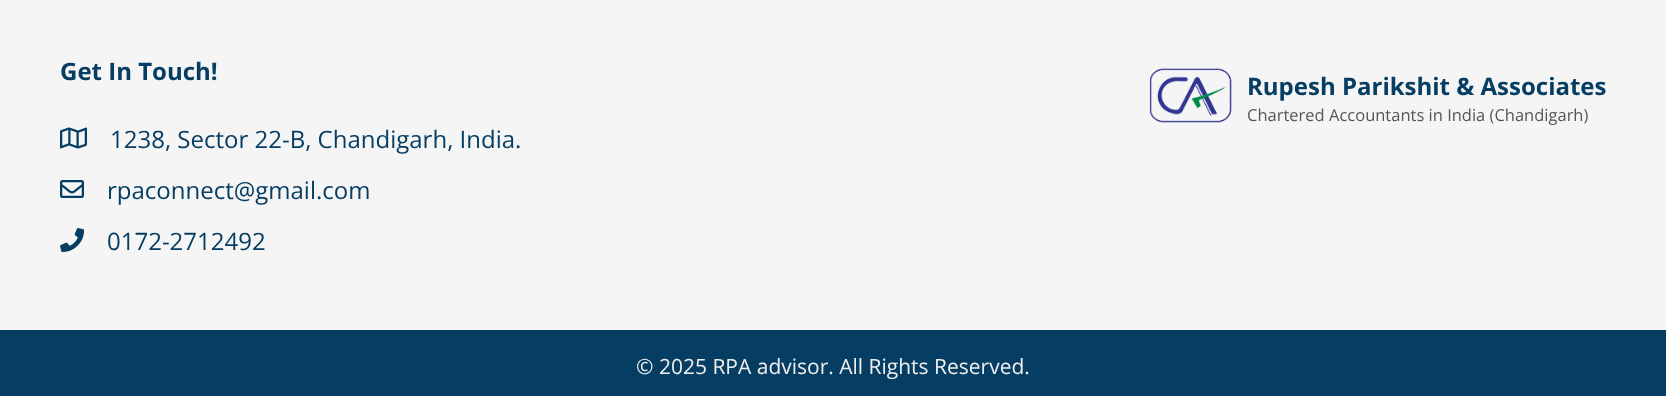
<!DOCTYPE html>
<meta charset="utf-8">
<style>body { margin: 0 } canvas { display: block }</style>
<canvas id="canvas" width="1666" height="396"></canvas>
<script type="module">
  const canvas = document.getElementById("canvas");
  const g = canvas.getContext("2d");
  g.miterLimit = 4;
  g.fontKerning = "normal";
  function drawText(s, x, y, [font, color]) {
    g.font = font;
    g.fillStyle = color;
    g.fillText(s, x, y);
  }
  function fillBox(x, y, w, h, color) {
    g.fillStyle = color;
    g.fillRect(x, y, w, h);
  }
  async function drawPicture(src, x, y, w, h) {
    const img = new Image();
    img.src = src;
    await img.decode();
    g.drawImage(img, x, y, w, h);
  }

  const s1 = ["bold 24px Open Sans", "#063D63"];
  const s2 = ["24px Open Sans", "#063D63"];
  const s3 = ["16.5px Open Sans", "#555555"];
  const s4 = ["21px Open Sans", "#EEEEEE"];

  fillBox(0, 0, 1666, 396, "#F5F5F5");
  drawText("Get In Touch!", 60, 80, s1);
  await drawPicture("pic1.png", 60, 127, 27, 22);
  drawText("1238, Sector 22-B, Chandigarh, India.", 110, 148, s2);
  await drawPicture("pic2.png", 60, 180, 24, 18);
  drawText("rpaconnect@gmail.com", 107, 199, s2);
  await drawPicture("pic3.png", 60, 228, 25, 24);
  drawText("0172-2712492", 107, 250, s2);
  await drawPicture("pic4.png", 1149, 68, 83, 55);
  drawText("Rupesh Parikshit & Associates", 1247, 95, s1);
  drawText("Chartered Accountants in India (Chandigarh)", 1247, 121, s3);
  fillBox(0, 330, 1666, 66, "#063D63");
  drawText("© 2025 RPA advisor. All Rights Reserved.", 636, 374, s4);
</script>
